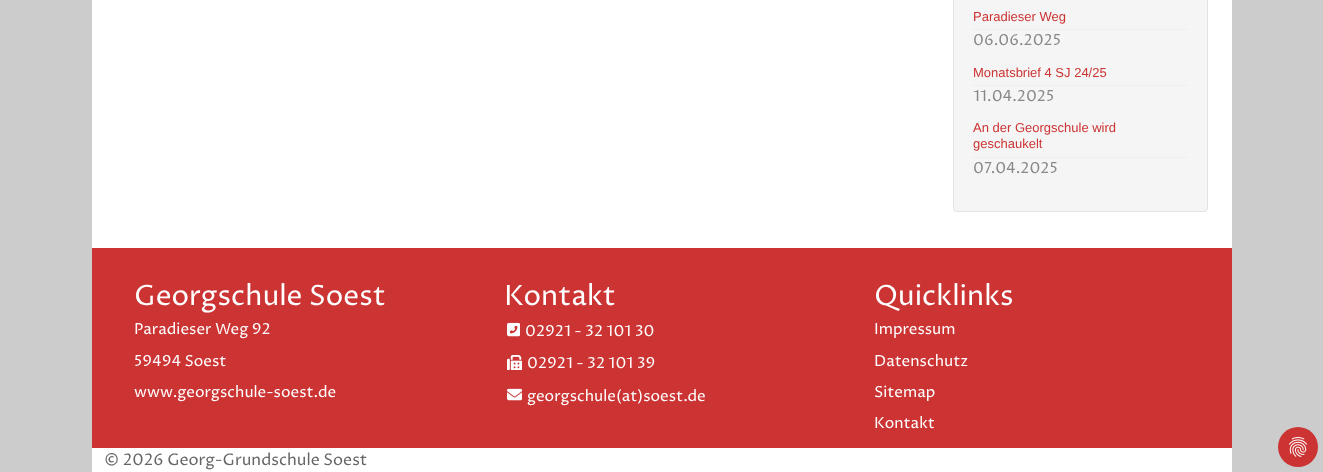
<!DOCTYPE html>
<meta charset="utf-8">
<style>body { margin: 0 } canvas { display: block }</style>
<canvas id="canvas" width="1323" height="472"></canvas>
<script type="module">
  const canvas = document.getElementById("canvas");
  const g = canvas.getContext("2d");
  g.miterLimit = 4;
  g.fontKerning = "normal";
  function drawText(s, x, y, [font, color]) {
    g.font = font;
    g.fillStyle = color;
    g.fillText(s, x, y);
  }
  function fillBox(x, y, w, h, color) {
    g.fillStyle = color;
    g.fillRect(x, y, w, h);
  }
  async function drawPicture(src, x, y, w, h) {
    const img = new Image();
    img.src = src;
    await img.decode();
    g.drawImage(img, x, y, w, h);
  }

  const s1 = ["13px Liberation Sans", "#CC3333"];
  const s2 = ["15.25px Proza Libre", "#888888"];
  const s3 = ["28px Proza Libre", "#FFFFFF"];
  const s4 = ["15.25px Proza Libre", "#FFFFFF"];
  const s5 = ["16px Proza Libre", "#666666"];

  fillBox(0, 0, 1323, 472, "#CCCCCC");
  fillBox(92, 0, 1140, 472, "#FFFFFF");
  g.fillStyle = "#F5F5F5";
  g.beginPath();
  g.roundRect(953.5, -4.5, 254, 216, 3.5);
  g.fill();
  g.strokeStyle = "#E3E3E3";
  g.stroke();
  drawText("Paradieser Weg", 973, 21, s1);
  fillBox(973, 29, 215, 1, "#EEEEEE");
  drawText("06.06.2025", 973, 45, s2);
  drawText("Monatsbrief 4 SJ 24/25", 973, 77, s1);
  fillBox(973, 85, 215, 1, "#EEEEEE");
  drawText("11.04.2025", 973, 101, s2);
  drawText("An der Georgschule wird", 973, 132, s1);
  drawText("geschaukelt", 973, 148, s1);
  fillBox(973, 157, 215, 1, "#EEEEEE");
  drawText("07.04.2025", 973, 173, s2);
  fillBox(92, 248, 1140, 200, "#CC3333");
  drawText("Georgschule Soest", 134, 305, s3);
  drawText("Paradieser Weg 92", 134, 334, s4);
  drawText("59494 Soest", 134, 366, s4);
  drawText("www.georgschule-soest.de", 134, 397, s4);
  drawText("Kontakt", 504, 305, s3);
  await drawPicture("pic1.png", 507, 322, 13, 15);
  drawText("02921 - 32 101 30", 525, 336, s4);
  await drawPicture("pic2.png", 507, 355, 15, 15);
  drawText("02921 - 32 101 39", 527, 368, s4);
  await drawPicture("pic3.png", 507, 388, 15, 13);
  drawText("georgschule(at)soest.de", 527, 401, s4);
  drawText("Quicklinks", 874, 305, s3);
  drawText("Impressum", 874, 334, s4);
  drawText("Datenschutz", 874, 366, s4);
  drawText("Sitemap", 874, 397, s4);
  drawText("Kontakt", 874, 428, s4);
  drawText("© 2026 Georg-Grundschule Soest", 104, 465, s5);
  g.fillStyle = "#CC3333";
  g.beginPath();
  g.arc(1298, 447, 20, 0, Math.PI * 2);
  g.fill();
  await drawPicture("pic4.png", 1289, 437, 18, 20);
</script>
